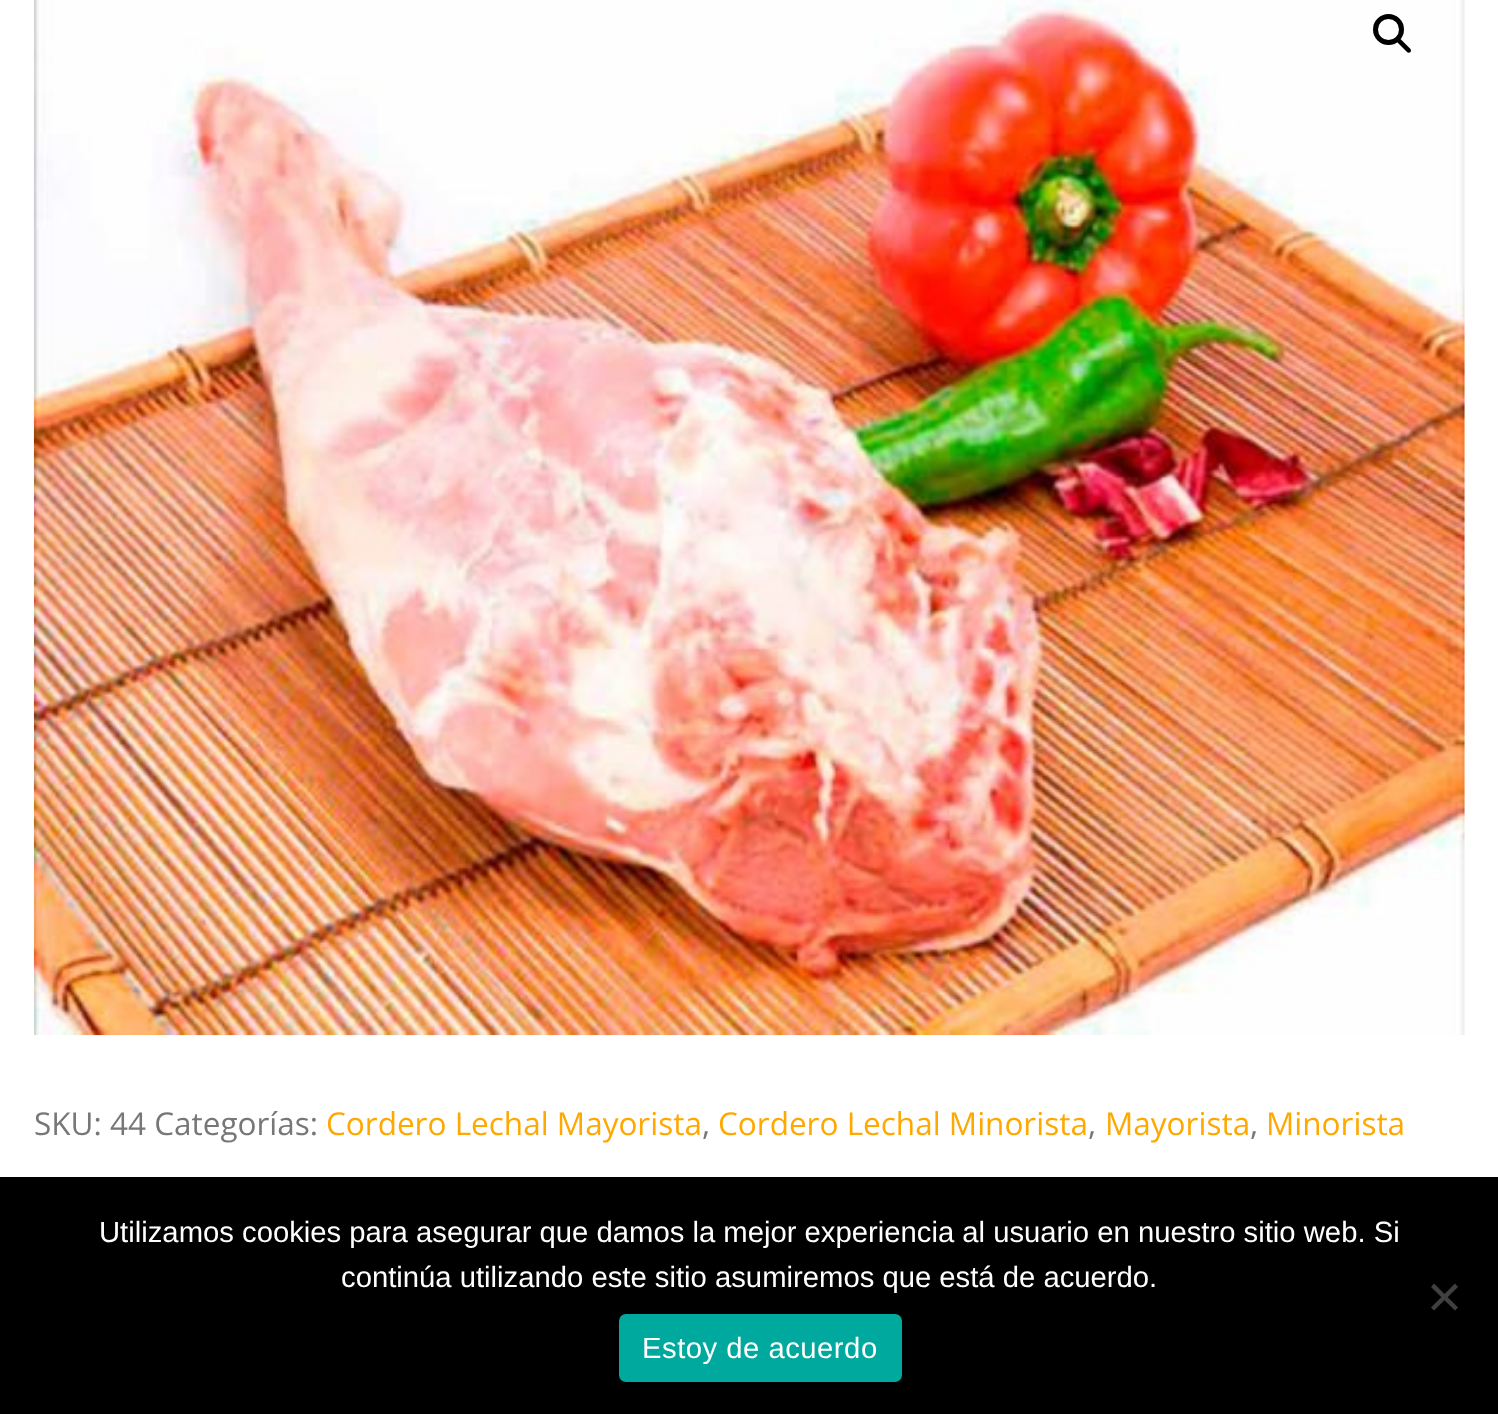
<!DOCTYPE html>
<meta charset="utf-8">
<style>body { margin: 0 } canvas { display: block }</style>
<canvas id="canvas" width="1498" height="1414"></canvas>
<script type="module">
  const canvas = document.getElementById("canvas");
  const g = canvas.getContext("2d");
  g.miterLimit = 4;
  g.fontKerning = "normal";
  function drawText(s, x, y, [font, color]) {
    g.font = font;
    g.fillStyle = color;
    g.fillText(s, x, y);
  }
  function fillBox(x, y, w, h, color) {
    g.fillStyle = color;
    g.fillRect(x, y, w, h);
  }
  function fillRounded(x, y, w, h, r, color) {
    g.fillStyle = color;
    g.beginPath();
    g.roundRect(x, y, w, h, r);
    g.fill();
  }
  async function drawPicture(src, x, y, w, h) {
    const img = new Image();
    img.src = src;
    await img.decode();
    g.drawImage(img, x, y, w, h);
  }

  const s1 = ["31.5px Open Sans", "#777777"];
  const s2 = ["31.5px Open Sans", "#FFA800"];
  const s3 = ["29.25px Liberation Sans", "#FFFFFF"];

  fillBox(0, 0, 1498, 1414, "#FFFFFF");
  await drawPicture("pic1.png", 33, 0, 1432, 1036);
  g.beginPath();
  g.arc(1388.5, 29.5, 13, 0, Math.PI * 2);
  g.strokeStyle = "#000000";
  g.lineWidth = 5;
  g.stroke();
  g.fillStyle = "#000000";
  g.beginPath();
  g.moveTo(1397.5, 39.5);
  g.bezierCurveTo(1398.5, 38.5, 1400, 38.5, 1401, 39.5);
  g.lineTo(1410.5, 49);
  g.bezierCurveTo(1411, 50, 1411, 51.5, 1410.5, 52);
  g.bezierCurveTo(1409.5, 53, 1408, 53, 1407, 52);
  g.lineTo(1397.5, 42.5);
  g.bezierCurveTo(1397, 42, 1397, 40.5, 1397.5, 39.5);
  g.closePath();
  g.fill();
  drawText("SKU: 44 Categorías:", 34, 1135, s1);
  drawText("Cordero Lechal Mayorista", 326, 1135, s2);
  drawText(",", 702, 1135, s1);
  drawText("Cordero Lechal Minorista", 718, 1135, s2);
  drawText(",", 1088, 1135, s1);
  drawText("Mayorista", 1105, 1135, s2);
  drawText(",", 1250, 1135, s1);
  drawText("Minorista", 1266, 1135, s2);
  fillBox(0, 1177, 1498, 237, "#000000");
  drawText("Utilizamos cookies para asegurar que damos la mejor experiencia al usuario en nuestro sitio web. Si", 99, 1242, s3);
  drawText("continúa utilizando este sitio asumiremos que está de acuerdo.", 341, 1287, s3);
  g.fillStyle = "#404040";
  g.beginPath();
  g.moveTo(1455, 1283.5);
  g.lineTo(1458, 1287);
  g.lineTo(1434, 1310.5);
  g.lineTo(1431, 1307.5);
  g.closePath();
  g.fill();
  g.beginPath();
  g.moveTo(1431, 1287);
  g.lineTo(1434, 1283.5);
  g.lineTo(1458, 1307.5);
  g.lineTo(1455, 1310.5);
  g.closePath();
  g.fill();
  fillRounded(619, 1314, 283, 68, 7, "#00A99D");
  g.letterSpacing = "0.5px";
  drawText("Estoy de acuerdo", 642, 1358, s3);
</script>
